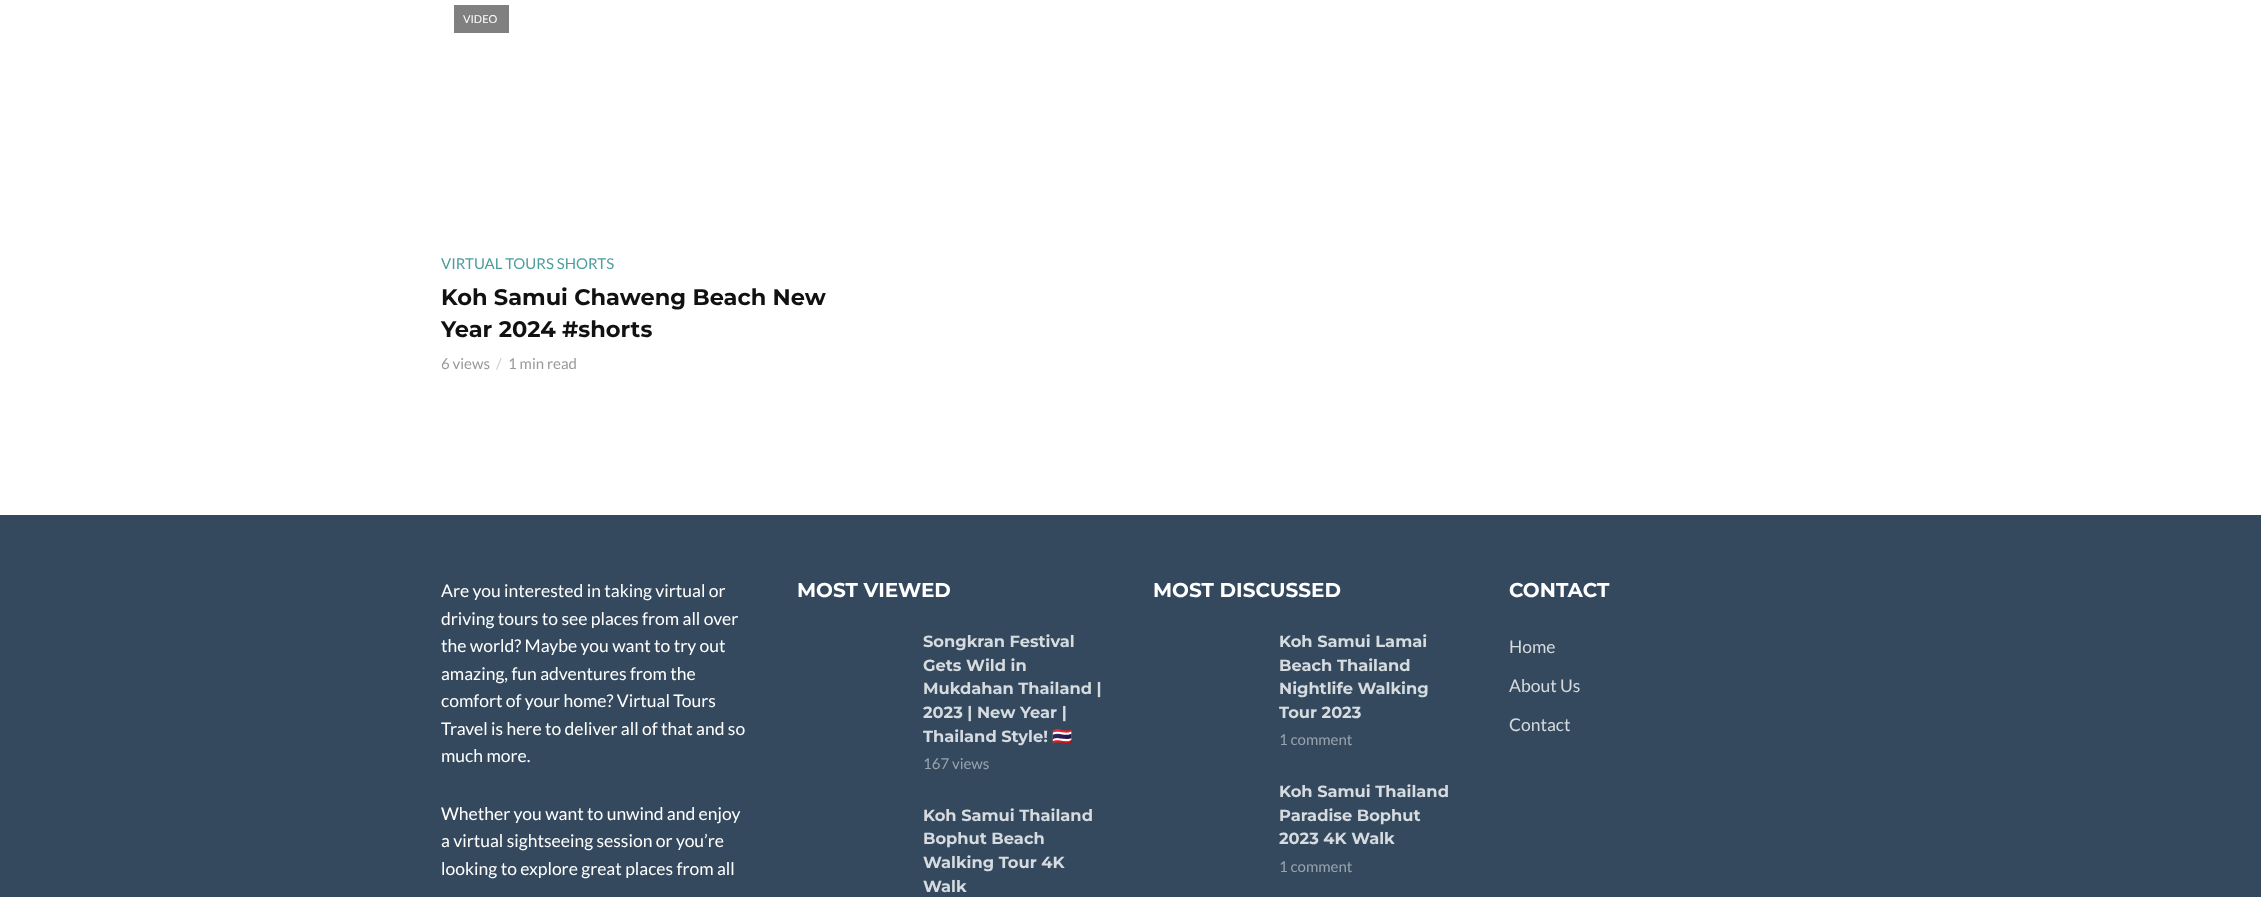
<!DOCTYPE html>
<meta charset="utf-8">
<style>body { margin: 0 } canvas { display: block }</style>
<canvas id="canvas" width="2261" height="897"></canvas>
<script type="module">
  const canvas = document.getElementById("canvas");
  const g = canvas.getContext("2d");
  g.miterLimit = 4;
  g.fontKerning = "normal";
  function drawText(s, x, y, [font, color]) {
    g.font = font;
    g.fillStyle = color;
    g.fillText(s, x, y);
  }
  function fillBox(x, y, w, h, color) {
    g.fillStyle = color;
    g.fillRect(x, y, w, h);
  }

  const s1 = ["11px Lato", "#FFFFFF"];
  const s2 = ["15px Lato", "#4D9DA0"];
  const s3 = ["bold 22.5px Montserrat", "#111111"];
  const s4 = ["15px Lato", "#999999"];
  const s5 = ["15px Lato", "#CCCCCC"];
  const s6 = ["17.5px Lato", "#FFFFFF"];
  const s7 = ["bold 20px Montserrat", "#FFFFFF"];
  const s8 = ["bold 16.25px Montserrat", "#D6DBDF"];
  const s9 = ["bold 16.25px Noto Color Emoji", "#D6DBDF"];
  const s10 = ["15px Lato", "#9AA4AF"];
  const s11 = ["17.5px Lato", "#D6DBDF"];

  fillBox(0, 0, 2261, 897, "#FFFFFF");
  fillBox(454, 5, 55, 28, "#808080");
  drawText("VIDEO", 463, 23, s1);
  drawText("VIRTUAL TOURS SHORTS", 441, 269, s2);
  drawText("Koh Samui Chaweng Beach New", 441, 305, s3);
  drawText("Year 2024 #shorts", 441, 337, s3);
  drawText("6 views", 441, 369, s4);
  drawText("/", 496, 369, s5);
  drawText("1 min read", 508, 369, s4);
  fillBox(0, 515, 2261, 382, "#34495E");
  drawText("Are you interested in taking virtual or", 441, 597, s6);
  drawText("driving tours to see places from all over", 441, 625, s6);
  drawText("the world? Maybe you want to try out", 441, 652, s6);
  drawText("amazing, fun adventures from the", 441, 680, s6);
  drawText("comfort of your home? Virtual Tours", 441, 707, s6);
  drawText("Travel is here to deliver all of that and so", 441, 735, s6);
  drawText("much more.", 441, 762, s6);
  drawText("Whether you want to unwind and enjoy", 441, 820, s6);
  drawText("a virtual sightseeing session or you’re", 441, 847, s6);
  drawText("looking to explore great places from all", 441, 875, s6);
  drawText("MOST VIEWED", 797, 597, s7);
  drawText("Songkran Festival", 923, 647, s8);
  drawText("Gets Wild in", 923, 671, s8);
  drawText("Mukdahan Thailand |", 923, 694, s8);
  drawText("2023 | New Year |", 923, 718, s8);
  drawText("Thailand Style!", 923, 742, s8);
  drawText("🇹🇭", 1052, 742, s9);
  drawText("167 views", 923, 769, s10);
  drawText("Koh Samui Thailand", 923, 821, s8);
  drawText("Bophut Beach", 923, 844, s8);
  drawText("Walking Tour 4K", 923, 868, s8);
  drawText("Walk", 923, 892, s8);
  drawText("MOST DISCUSSED", 1153, 597, s7);
  drawText("Koh Samui Lamai", 1279, 647, s8);
  drawText("Beach Thailand", 1279, 671, s8);
  drawText("Nightlife Walking", 1279, 694, s8);
  drawText("Tour 2023", 1279, 718, s8);
  drawText("1 comment", 1279, 745, s10);
  drawText("Koh Samui Thailand", 1279, 797, s8);
  drawText("Paradise Bophut", 1279, 821, s8);
  drawText("2023 4K Walk", 1279, 844, s8);
  drawText("1 comment", 1279, 872, s10);
  drawText("CONTACT", 1509, 597, s7);
  drawText("Home", 1509, 653, s11);
  drawText("About Us", 1509, 692, s11);
  drawText("Contact", 1509, 731, s11);
</script>
